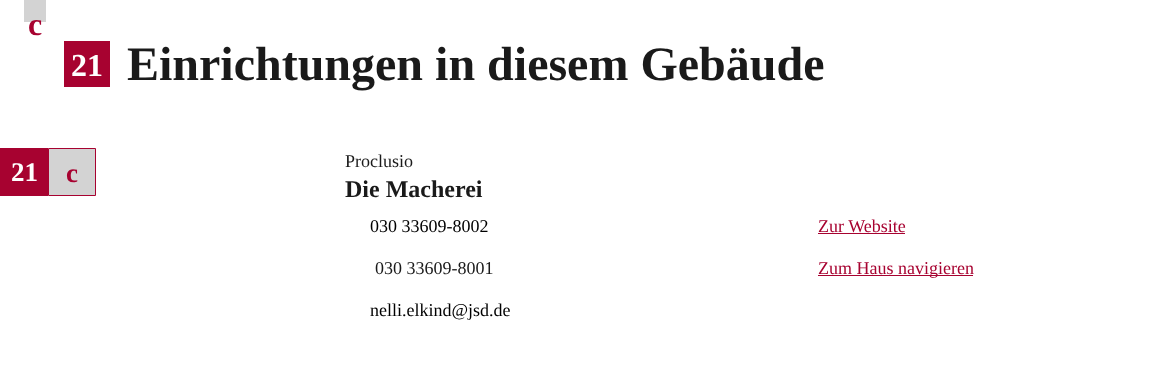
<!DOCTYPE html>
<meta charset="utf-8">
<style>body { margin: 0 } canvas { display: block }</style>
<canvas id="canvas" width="1150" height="373"></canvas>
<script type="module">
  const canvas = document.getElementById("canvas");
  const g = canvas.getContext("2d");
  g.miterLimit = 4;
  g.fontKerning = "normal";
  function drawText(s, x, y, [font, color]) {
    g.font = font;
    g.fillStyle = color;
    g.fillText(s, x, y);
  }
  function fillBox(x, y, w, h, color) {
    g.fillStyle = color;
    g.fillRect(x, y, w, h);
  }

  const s1 = ["bold 32px Liberation Serif", "#A70230"];
  const s2 = ["bold 32px Liberation Serif", "#FFFFFF"];
  const s3 = ["bold 48px Liberation Serif", "#1A1A1A"];
  const s4 = ["bold 27px Liberation Serif", "#FFFFFF"];
  const s5 = ["bold 27px Liberation Serif", "#A70230"];
  const s6 = ["18px Liberation Serif", "#1A1A1A"];
  const s7 = ["bold 24px Liberation Serif", "#1A1A1A"];
  const s8 = ["18px Liberation Serif", "#000000"];
  const s9 = ["18px Liberation Serif", "#A70230"];

  fillBox(0, 0, 1150, 373, "#FFFFFF");
  fillBox(64, 41, 46, 46, "#A70230");
  fillBox(24, 0, 22, 22, "#D3D3D3");
  drawText("c", 28, 35, s1);
  drawText("21", 71, 76, s2);
  drawText("Einrichtungen in diesem Gebäude", 127, 80, s3);
  fillBox(0, 148, 48, 48, "#A70230");
  drawText("21", 11, 181, s4);
  g.fillStyle = "#D3D3D3";
  g.beginPath();
  g.rect(48.5, 148.5, 47, 47);
  g.fill();
  g.strokeStyle = "#A70230";
  g.stroke();
  drawText("c", 66, 182, s5);
  drawText("Proclusio", 345, 167, s6);
  drawText("Die Macherei", 345, 197, s7);
  drawText("030 33609-8002", 370, 232, s8);
  drawText("030 33609-8001", 375, 274, s6);
  drawText("nelli.elkind@jsd.de", 370, 316, s8);
  drawText("Zur Website", 818, 232, s9);
  fillBox(818, 233, 87, 1, "#A70230");
  fillBox(818, 275, 155, 1, "#A70230");
  drawText("Zum Haus navigieren", 818, 274, s9);
</script>
